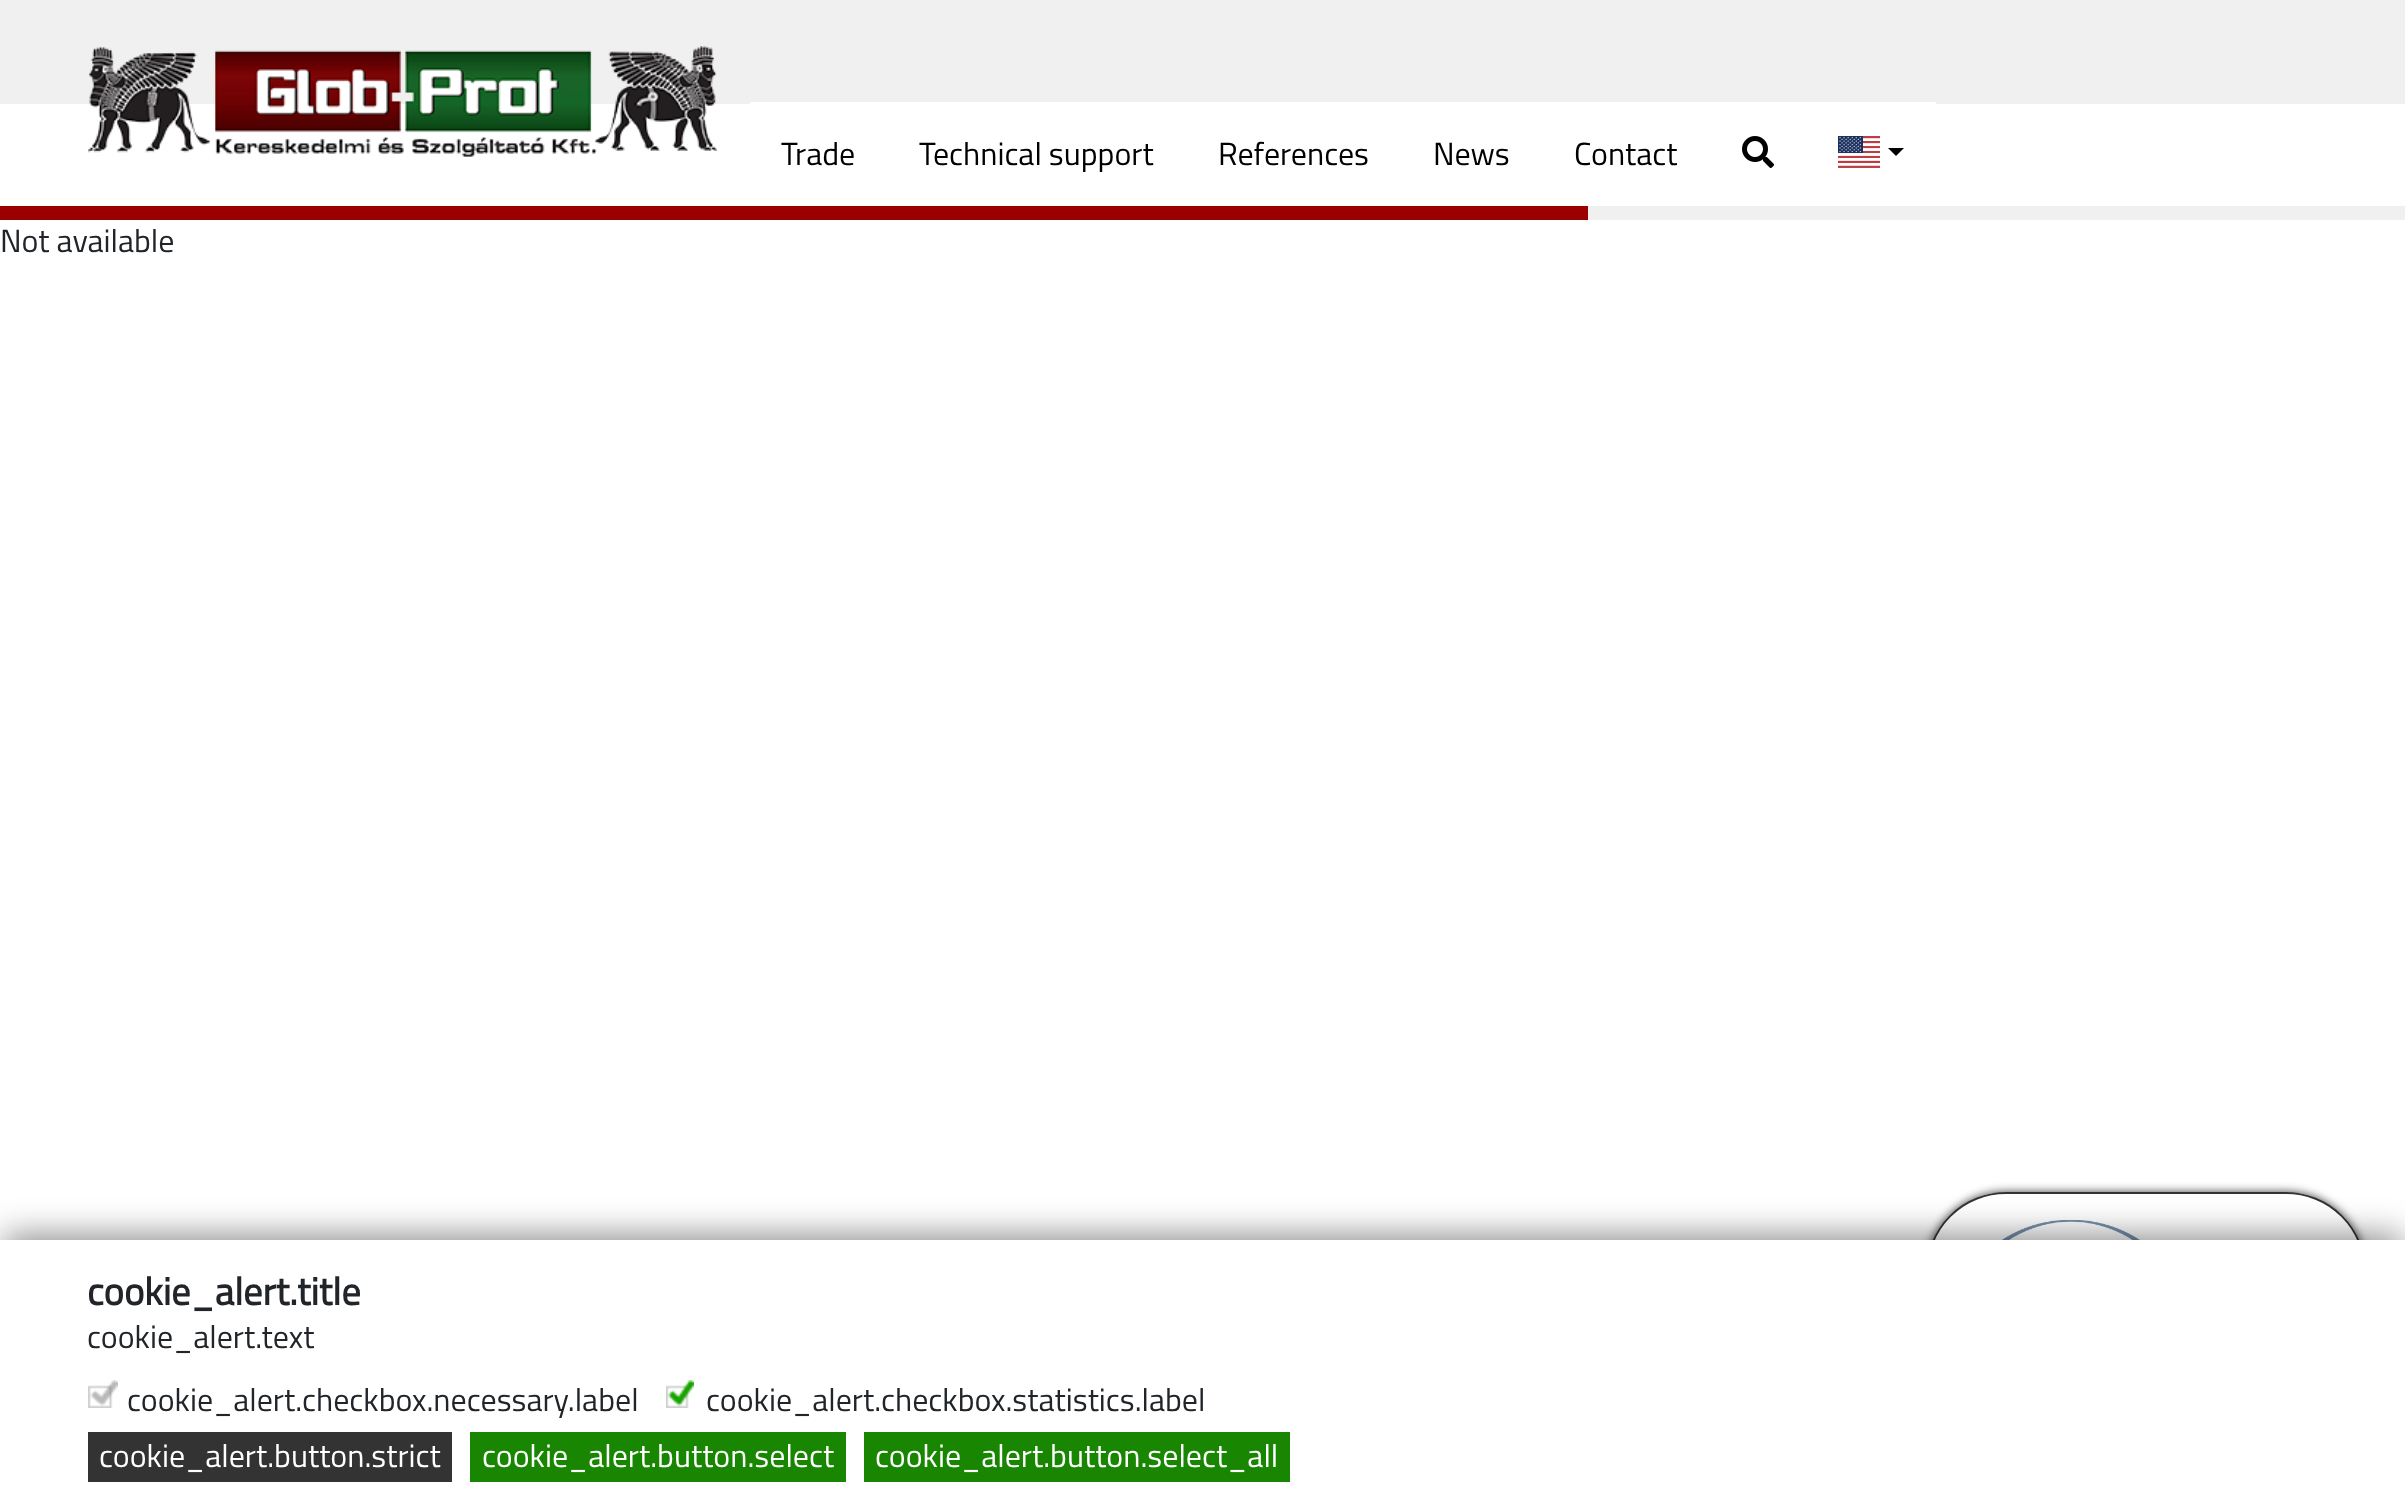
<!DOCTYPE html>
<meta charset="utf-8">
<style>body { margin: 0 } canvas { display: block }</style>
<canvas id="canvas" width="2405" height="1512"></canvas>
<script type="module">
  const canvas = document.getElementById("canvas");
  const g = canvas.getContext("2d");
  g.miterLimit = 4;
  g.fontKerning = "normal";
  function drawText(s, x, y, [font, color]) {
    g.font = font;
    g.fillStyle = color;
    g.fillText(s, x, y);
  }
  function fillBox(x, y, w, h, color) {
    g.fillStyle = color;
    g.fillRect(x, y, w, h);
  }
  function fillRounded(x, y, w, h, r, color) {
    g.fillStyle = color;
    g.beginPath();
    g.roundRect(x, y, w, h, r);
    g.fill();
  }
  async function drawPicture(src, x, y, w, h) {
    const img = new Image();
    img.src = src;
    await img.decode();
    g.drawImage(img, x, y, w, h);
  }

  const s1 = ["32px Titillium Web", "#000000"];
  const s2 = ["32px Titillium Web", "#212529"];
  const s3 = ["bold 38.5px Titillium Web", "#212529"];
  const s4 = ["32px Titillium Web", "#FFFFFF"];

  fillBox(0, 0, 2405, 1512, "#FFFFFF");
  fillBox(0, 0, 2405, 104, "#F0F0F0");
  await drawPicture("pic1.png", 88, 46, 630, 111);
  fillBox(750, 102, 1186, 2, "#FFFFFF");
  drawText("Trade", 781, 165, s1);
  drawText("Technical support", 919, 165, s1);
  drawText("References", 1218, 165, s1);
  drawText("News", 1433, 165, s1);
  drawText("Contact", 1574, 165, s1);
  await drawPicture("pic2.png", 1742, 136, 32, 32);
  await drawPicture("pic3.png", 1838, 136, 42, 32);
  g.beginPath();
  g.moveTo(1888, 148);
  g.lineTo(1904, 148);
  g.lineTo(1896, 156);
  g.closePath();
  g.fill();
  fillBox(1588, 206, 817, 14, "#F0F0F0");
  fillBox(0, 206, 1588, 14, "#9B0000");
  drawText("Not available", 0, 252, s2);
  g.fillStyle = "rgba(0, 0, 0, 0.75)";
  g.filter = "blur(5px)";
  g.beginPath();
  g.roundRect(1926, 1192, 440, 300, 80);
  g.fill();
  g.filter = "none";
  fillRounded(1926, 1192, 440, 300, 80, "#FFFFFF");
  await drawPicture("pic6.png", 1946, 1220, 400, 20);
  g.beginPath();
  g.roundRect(1927, 1193, 438, 298, 79);
  g.strokeStyle = "#333333";
  g.lineWidth = 2;
  g.stroke();
  g.fillStyle = "rgba(0, 0, 0, 0.47)";
  g.filter = "blur(17px)";
  g.beginPath();
  g.rect(4, 1236, 2398, 264);
  g.fill();
  g.filter = "none";
  fillBox(0, 1240, 2405, 272, "#FFFFFF");
  drawText("cookie_alert.title", 87, 1305, s3);
  drawText("cookie_alert.text", 87, 1348, s2);
  await drawPicture("pic4.png", 88, 1380, 30, 28);
  drawText("cookie_alert.checkbox.necessary.label", 127, 1411, s2);
  await drawPicture("pic5.png", 666, 1380, 28, 28);
  drawText("cookie_alert.checkbox.statistics.label", 706, 1411, s2);
  fillBox(88, 1432, 364, 50, "#333333");
  drawText("cookie_alert.button.strict", 99, 1467, s4);
  fillBox(470, 1432, 376, 50, "#188600");
  drawText("cookie_alert.button.select", 482, 1467, s4);
  fillBox(864, 1432, 426, 50, "#188600");
  drawText("cookie_alert.button.select_all", 875, 1467, s4);
</script>
